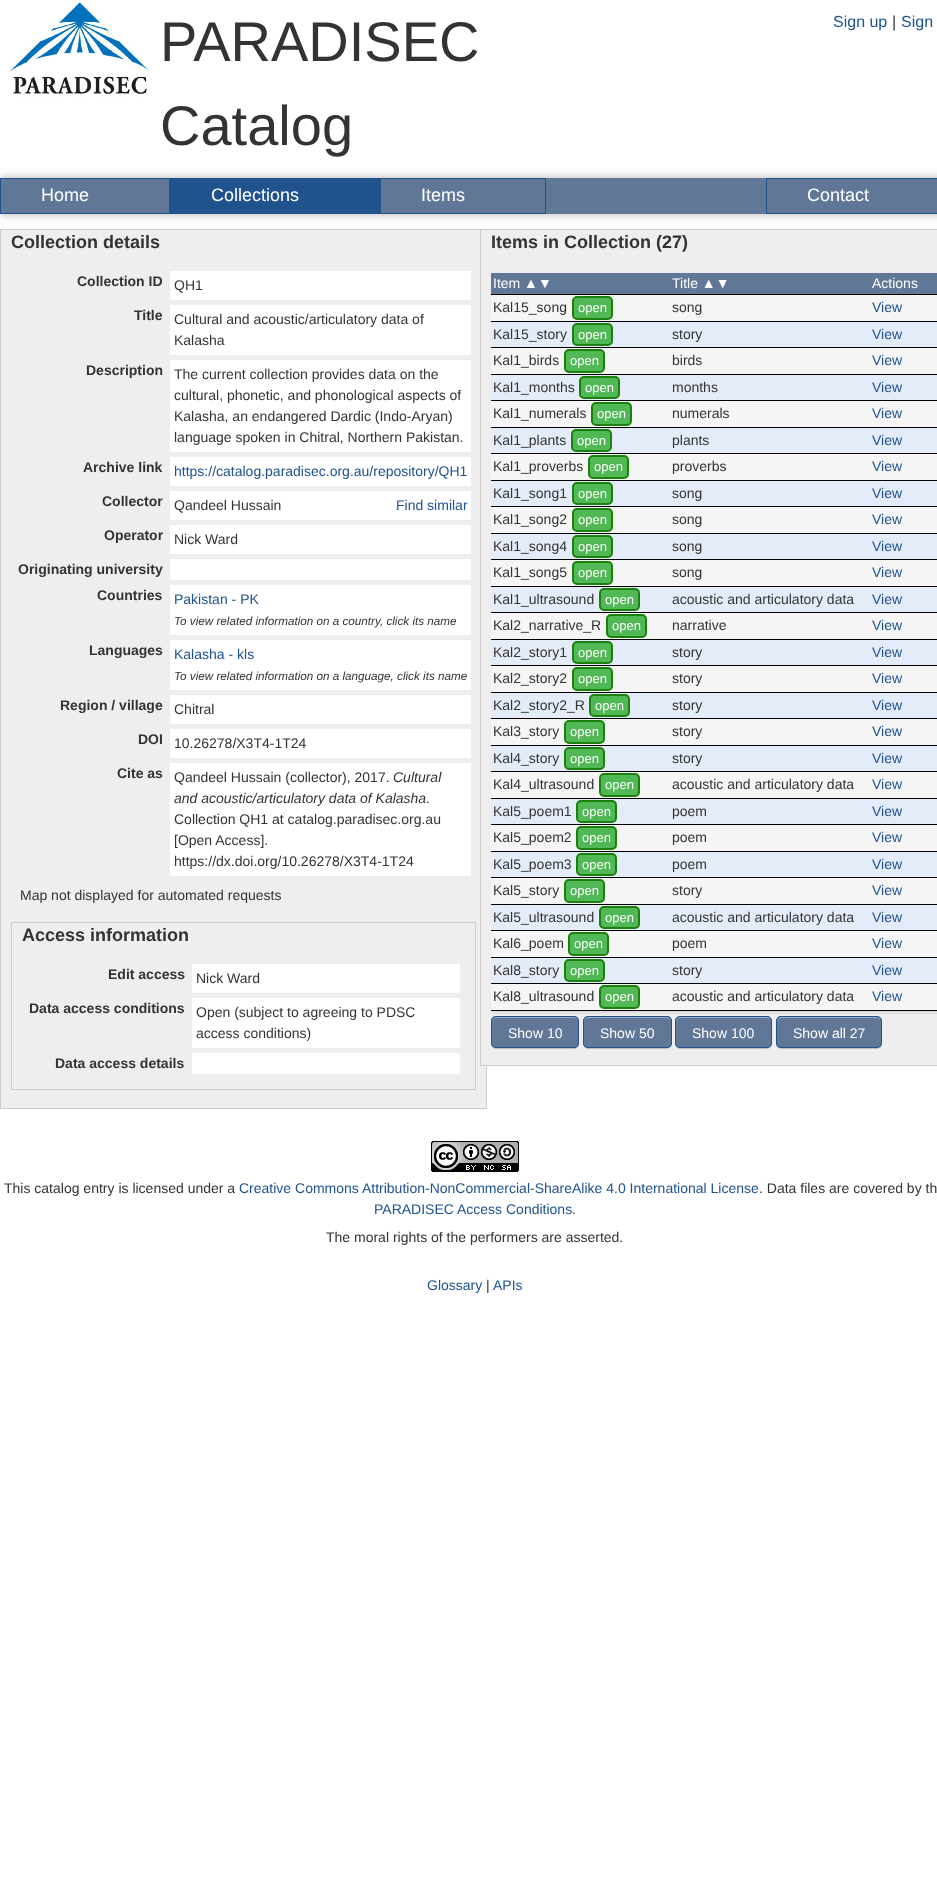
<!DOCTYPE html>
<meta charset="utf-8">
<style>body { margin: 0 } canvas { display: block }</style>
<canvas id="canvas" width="937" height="1901"></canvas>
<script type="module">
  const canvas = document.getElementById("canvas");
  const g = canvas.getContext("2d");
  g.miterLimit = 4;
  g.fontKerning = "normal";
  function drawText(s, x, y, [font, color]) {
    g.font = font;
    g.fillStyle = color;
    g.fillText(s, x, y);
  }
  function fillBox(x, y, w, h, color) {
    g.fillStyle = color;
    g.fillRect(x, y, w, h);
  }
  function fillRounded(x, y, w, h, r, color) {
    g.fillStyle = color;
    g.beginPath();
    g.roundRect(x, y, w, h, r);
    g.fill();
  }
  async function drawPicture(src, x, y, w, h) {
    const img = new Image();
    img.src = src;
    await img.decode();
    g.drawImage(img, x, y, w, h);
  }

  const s1 = ["56px Liberation Sans", "#333333"];
  const s2 = ["16px Liberation Sans", "#20538D"];
  const s3 = ["16px Liberation Sans", "#333333"];
  const s4 = ["18px Liberation Sans", "#FFFFFF"];
  const s5 = ["bold 18px Liberation Sans", "#333333"];
  const s6 = ["bold 14px Liberation Sans", "#333333"];
  const s7 = ["14px Liberation Sans", "#333333"];
  const s8 = ["14px Liberation Sans", "#20538D"];
  const s9 = ["italic 11.7px Liberation Sans", "#333333"];
  const s10 = ["italic 14px Liberation Sans", "#333333"];
  const s11 = ["14px Liberation Sans", "#FFFFFF"];
  const s12 = ["13px Liberation Sans", "#FFFFFF"];

  fillBox(0, 0, 937, 1901, "#FFFFFF");
  await drawPicture("pic1.png", 8, 0, 145, 97);
  drawText("PARADISEC", 160, 61, s1);
  drawText("Catalog", 160, 145, s1);
  drawText("Sign up", 833, 27, s2);
  drawText("|", 892, 27, s3);
  drawText("Sign", 901, 27, s2);
  g.fillStyle = "rgba(0, 0, 0, 0.3)";
  g.filter = "blur(5px)";
  g.beginPath();
  g.rect(0, 178, 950, 36);
  g.fill();
  g.filter = "none";
  fillBox(1, 178, 936, 36, "#617798");
  g.strokeStyle = "#20538D";
  g.strokeRect(0.5, 178.5, 169, 35);
  drawText("Home", 41, 201, s4);
  fillBox(170, 178, 210, 36, "#20538D");
  drawText("Collections", 211, 201, s4);
  g.strokeRect(380.5, 178.5, 165, 35);
  drawText("Items", 421, 201, s4);
  g.strokeRect(766.5, 178.5, 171, 35);
  drawText("Contact", 807, 201, s4);
  g.fillStyle = "#EEEEEE";
  g.beginPath();
  g.rect(0.5, 229.5, 486, 879);
  g.fill();
  g.strokeStyle = "#CCCCCC";
  g.stroke();
  drawText("Collection details", 11, 248, s5);
  drawText("Collection ID", 77, 286, s6);
  fillBox(170, 271, 301, 29, "#FFFFFF");
  drawText("QH1", 174, 290, s7);
  drawText("Title", 134, 320, s6);
  fillBox(170, 305, 301, 50, "#FFFFFF");
  drawText("Cultural and acoustic/articulatory data of", 174, 324, s7);
  drawText("Kalasha", 174, 345, s7);
  drawText("Description", 86, 375, s6);
  fillBox(170, 360, 301, 92, "#FFFFFF");
  drawText("The current collection provides data on the", 174, 379, s7);
  drawText("cultural, phonetic, and phonological aspects of", 174, 400, s7);
  drawText("Kalasha, an endangered Dardic (Indo-Aryan)", 174, 421, s7);
  drawText("language spoken in Chitral, Northern Pakistan.", 174, 442, s7);
  drawText("Archive link", 83, 472, s6);
  fillBox(170, 457, 301, 29, "#FFFFFF");
  drawText("https://catalog.paradisec.org.au/repository/QH1", 174, 476, s8);
  drawText("Collector", 102, 506, s6);
  fillBox(170, 491, 301, 29, "#FFFFFF");
  drawText("Qandeel Hussain", 174, 510, s7);
  drawText("Find similar", 396, 510, s8);
  drawText("Operator", 104, 540, s6);
  fillBox(170, 525, 301, 29, "#FFFFFF");
  drawText("Nick Ward", 174, 544, s7);
  drawText("Originating university", 18, 574, s6);
  fillBox(170, 559, 301, 21, "#FFFFFF");
  drawText("Countries", 97, 600, s6);
  fillBox(170, 585, 301, 50, "#FFFFFF");
  drawText("Pakistan - PK", 174, 604, s8);
  drawText("To view related information on a country, click its name", 174, 625, s9);
  drawText("Languages", 89, 655, s6);
  fillBox(170, 640, 301, 50, "#FFFFFF");
  drawText("Kalasha - kls", 174, 659, s8);
  drawText("To view related information on a language, click its name", 174, 680, s9);
  drawText("Region / village", 60, 710, s6);
  fillBox(170, 695, 301, 29, "#FFFFFF");
  drawText("Chitral", 174, 714, s7);
  drawText("DOI", 138, 744, s6);
  fillBox(170, 729, 301, 29, "#FFFFFF");
  drawText("10.26278/X3T4-1T24", 174, 748, s7);
  drawText("Cite as", 117, 778, s6);
  fillBox(170, 763, 301, 113, "#FFFFFF");
  drawText("Qandeel Hussain (collector), 2017.", 174, 782, s7);
  drawText("Cultural", 393, 782, s10);
  drawText("and acoustic/articulatory data of Kalasha", 174, 803, s10);
  drawText(".", 426, 803, s7);
  drawText("Collection QH1 at catalog.paradisec.org.au", 174, 824, s7);
  drawText("[Open Access].", 174, 845, s7);
  drawText("https://dx.doi.org/10.26278/X3T4-1T24", 174, 866, s7);
  drawText("Map not displayed for automated requests", 20, 900, s7);
  g.strokeRect(11.5, 922.5, 464, 167);
  drawText("Access information", 22, 941, s5);
  drawText("Edit access", 108, 979, s6);
  fillBox(192, 964, 268, 29, "#FFFFFF");
  drawText("Nick Ward", 196, 983, s7);
  drawText("Data access conditions", 29, 1013, s6);
  fillBox(192, 998, 268, 50, "#FFFFFF");
  drawText("Open (subject to agreeing to PDSC", 196, 1017, s7);
  drawText("access conditions)", 196, 1038, s7);
  drawText("Data access details", 55, 1068, s6);
  fillBox(192, 1053, 268, 21, "#FFFFFF");
  fillBox(486, 230, 451, 835, "#EEEEEE");
  g.strokeRect(480.5, 229.5, 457, 836);
  drawText("Items in Collection (27)", 491, 248, s5);
  g.fillStyle = "rgba(0, 0, 0, 0.1)";
  g.filter = "blur(1.5px)";
  g.beginPath();
  g.rect(493, 275, 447, 738);
  g.fill();
  g.filter = "none";
  fillBox(491, 273, 446, 21, "#617798");
  fillBox(491, 294, 446, 1, "#000000");
  drawText("Item ▲▼", 493, 288, s11);
  drawText("Title ▲▼", 672, 288, s11);
  drawText("Actions", 872, 288, s11);
  fillBox(491, 295, 446, 26, "#F5F5F5");
  fillBox(491, 321, 446, 1, "#000000");
  drawText("Kal15_song", 493, 312, s7);
  g.fillStyle = "#50B855";
  g.beginPath();
  g.roundRect(573, 297, 39, 22, 4);
  g.fill();
  g.strokeStyle = "#1C800C";
  g.lineWidth = 2;
  g.stroke();
  drawText("open", 578, 312, s12);
  drawText("song", 672, 312, s7);
  drawText("View", 872, 312, s8);
  fillBox(491, 322, 446, 25, "#E5ECF9");
  fillBox(491, 347, 446, 1, "#000000");
  drawText("Kal15_story", 493, 339, s7);
  g.fillStyle = "#50B855";
  g.beginPath();
  g.roundRect(573, 324, 39, 21, 4);
  g.fill();
  g.stroke();
  drawText("open", 578, 339, s12);
  drawText("story", 672, 339, s7);
  drawText("View", 872, 339, s8);
  fillBox(491, 348, 446, 26, "#F5F5F5");
  fillBox(491, 374, 446, 1, "#000000");
  drawText("Kal1_birds", 493, 365, s7);
  g.fillStyle = "#50B855";
  g.beginPath();
  g.roundRect(565, 350, 39, 22, 4);
  g.fill();
  g.stroke();
  drawText("open", 570, 365, s12);
  drawText("birds", 672, 365, s7);
  drawText("View", 872, 365, s8);
  fillBox(491, 375, 446, 25, "#E5ECF9");
  fillBox(491, 400, 446, 1, "#000000");
  drawText("Kal1_months", 493, 392, s7);
  g.fillStyle = "#50B855";
  g.beginPath();
  g.roundRect(580, 377, 39, 21, 4);
  g.fill();
  g.stroke();
  drawText("open", 585, 392, s12);
  drawText("months", 672, 392, s7);
  drawText("View", 872, 392, s8);
  fillBox(491, 401, 446, 26, "#F5F5F5");
  fillBox(491, 427, 446, 1, "#000000");
  drawText("Kal1_numerals", 493, 418, s7);
  g.fillStyle = "#50B855";
  g.beginPath();
  g.roundRect(592, 403, 39, 22, 4);
  g.fill();
  g.stroke();
  drawText("open", 597, 418, s12);
  drawText("numerals", 672, 418, s7);
  drawText("View", 872, 418, s8);
  fillBox(491, 428, 446, 25, "#E5ECF9");
  fillBox(491, 453, 446, 1, "#000000");
  drawText("Kal1_plants", 493, 445, s7);
  g.fillStyle = "#50B855";
  g.beginPath();
  g.roundRect(572, 430, 39, 21, 4);
  g.fill();
  g.stroke();
  drawText("open", 577, 445, s12);
  drawText("plants", 672, 445, s7);
  drawText("View", 872, 445, s8);
  fillBox(491, 454, 446, 26, "#F5F5F5");
  fillBox(491, 480, 446, 1, "#000000");
  drawText("Kal1_proverbs", 493, 471, s7);
  g.fillStyle = "#50B855";
  g.beginPath();
  g.roundRect(589, 456, 39, 22, 4);
  g.fill();
  g.stroke();
  drawText("open", 594, 471, s12);
  drawText("proverbs", 672, 471, s7);
  drawText("View", 872, 471, s8);
  fillBox(491, 481, 446, 25, "#E5ECF9");
  fillBox(491, 506, 446, 1, "#000000");
  drawText("Kal1_song1", 493, 498, s7);
  g.fillStyle = "#50B855";
  g.beginPath();
  g.roundRect(573, 483, 39, 21, 4);
  g.fill();
  g.stroke();
  drawText("open", 578, 498, s12);
  drawText("song", 672, 498, s7);
  drawText("View", 872, 498, s8);
  fillBox(491, 507, 446, 26, "#F5F5F5");
  fillBox(491, 533, 446, 1, "#000000");
  drawText("Kal1_song2", 493, 524, s7);
  g.fillStyle = "#50B855";
  g.beginPath();
  g.roundRect(573, 509, 39, 22, 4);
  g.fill();
  g.stroke();
  drawText("open", 578, 524, s12);
  drawText("song", 672, 524, s7);
  drawText("View", 872, 524, s8);
  fillBox(491, 534, 446, 25, "#E5ECF9");
  fillBox(491, 559, 446, 1, "#000000");
  drawText("Kal1_song4", 493, 551, s7);
  g.fillStyle = "#50B855";
  g.beginPath();
  g.roundRect(573, 536, 39, 21, 4);
  g.fill();
  g.stroke();
  drawText("open", 578, 551, s12);
  drawText("song", 672, 551, s7);
  drawText("View", 872, 551, s8);
  fillBox(491, 560, 446, 26, "#F5F5F5");
  fillBox(491, 586, 446, 1, "#000000");
  drawText("Kal1_song5", 493, 577, s7);
  g.fillStyle = "#50B855";
  g.beginPath();
  g.roundRect(573, 562, 39, 22, 4);
  g.fill();
  g.stroke();
  drawText("open", 578, 577, s12);
  drawText("song", 672, 577, s7);
  drawText("View", 872, 577, s8);
  fillBox(491, 587, 446, 25, "#E5ECF9");
  fillBox(491, 612, 446, 1, "#000000");
  drawText("Kal1_ultrasound", 493, 604, s7);
  g.fillStyle = "#50B855";
  g.beginPath();
  g.roundRect(600, 589, 39, 21, 4);
  g.fill();
  g.stroke();
  drawText("open", 605, 604, s12);
  drawText("acoustic and articulatory data", 672, 604, s7);
  drawText("View", 872, 604, s8);
  fillBox(491, 613, 446, 26, "#F5F5F5");
  fillBox(491, 639, 446, 1, "#000000");
  drawText("Kal2_narrative_R", 493, 630, s7);
  g.fillStyle = "#50B855";
  g.beginPath();
  g.roundRect(607, 615, 39, 22, 4);
  g.fill();
  g.stroke();
  drawText("open", 612, 630, s12);
  drawText("narrative", 672, 630, s7);
  drawText("View", 872, 630, s8);
  fillBox(491, 640, 446, 25, "#E5ECF9");
  fillBox(491, 665, 446, 1, "#000000");
  drawText("Kal2_story1", 493, 657, s7);
  g.fillStyle = "#50B855";
  g.beginPath();
  g.roundRect(573, 642, 39, 21, 4);
  g.fill();
  g.stroke();
  drawText("open", 578, 657, s12);
  drawText("story", 672, 657, s7);
  drawText("View", 872, 657, s8);
  fillBox(491, 666, 446, 26, "#F5F5F5");
  fillBox(491, 692, 446, 1, "#000000");
  drawText("Kal2_story2", 493, 683, s7);
  g.fillStyle = "#50B855";
  g.beginPath();
  g.roundRect(573, 668, 39, 22, 4);
  g.fill();
  g.stroke();
  drawText("open", 578, 683, s12);
  drawText("story", 672, 683, s7);
  drawText("View", 872, 683, s8);
  fillBox(491, 693, 446, 25, "#E5ECF9");
  fillBox(491, 718, 446, 1, "#000000");
  drawText("Kal2_story2_R", 493, 710, s7);
  g.fillStyle = "#50B855";
  g.beginPath();
  g.roundRect(590, 695, 39, 21, 4);
  g.fill();
  g.stroke();
  drawText("open", 595, 710, s12);
  drawText("story", 672, 710, s7);
  drawText("View", 872, 710, s8);
  fillBox(491, 719, 446, 26, "#F5F5F5");
  fillBox(491, 745, 446, 1, "#000000");
  drawText("Kal3_story", 493, 736, s7);
  g.fillStyle = "#50B855";
  g.beginPath();
  g.roundRect(565, 721, 39, 22, 4);
  g.fill();
  g.stroke();
  drawText("open", 570, 736, s12);
  drawText("story", 672, 736, s7);
  drawText("View", 872, 736, s8);
  fillBox(491, 746, 446, 25, "#E5ECF9");
  fillBox(491, 771, 446, 1, "#000000");
  drawText("Kal4_story", 493, 763, s7);
  g.fillStyle = "#50B855";
  g.beginPath();
  g.roundRect(565, 748, 39, 21, 4);
  g.fill();
  g.stroke();
  drawText("open", 570, 763, s12);
  drawText("story", 672, 763, s7);
  drawText("View", 872, 763, s8);
  fillBox(491, 772, 446, 26, "#F5F5F5");
  fillBox(491, 798, 446, 1, "#000000");
  drawText("Kal4_ultrasound", 493, 789, s7);
  g.fillStyle = "#50B855";
  g.beginPath();
  g.roundRect(600, 774, 39, 22, 4);
  g.fill();
  g.stroke();
  drawText("open", 605, 789, s12);
  drawText("acoustic and articulatory data", 672, 789, s7);
  drawText("View", 872, 789, s8);
  fillBox(491, 799, 446, 25, "#E5ECF9");
  fillBox(491, 824, 446, 1, "#000000");
  drawText("Kal5_poem1", 493, 816, s7);
  g.fillStyle = "#50B855";
  g.beginPath();
  g.roundRect(577, 801, 39, 21, 4);
  g.fill();
  g.stroke();
  drawText("open", 582, 816, s12);
  drawText("poem", 672, 816, s7);
  drawText("View", 872, 816, s8);
  fillBox(491, 825, 446, 26, "#F5F5F5");
  fillBox(491, 851, 446, 1, "#000000");
  drawText("Kal5_poem2", 493, 842, s7);
  g.fillStyle = "#50B855";
  g.beginPath();
  g.roundRect(577, 827, 39, 22, 4);
  g.fill();
  g.stroke();
  drawText("open", 582, 842, s12);
  drawText("poem", 672, 842, s7);
  drawText("View", 872, 842, s8);
  fillBox(491, 852, 446, 25, "#E5ECF9");
  fillBox(491, 877, 446, 1, "#000000");
  drawText("Kal5_poem3", 493, 869, s7);
  g.fillStyle = "#50B855";
  g.beginPath();
  g.roundRect(577, 854, 39, 21, 4);
  g.fill();
  g.stroke();
  drawText("open", 582, 869, s12);
  drawText("poem", 672, 869, s7);
  drawText("View", 872, 869, s8);
  fillBox(491, 878, 446, 26, "#F5F5F5");
  fillBox(491, 904, 446, 1, "#000000");
  drawText("Kal5_story", 493, 895, s7);
  g.fillStyle = "#50B855";
  g.beginPath();
  g.roundRect(565, 880, 39, 22, 4);
  g.fill();
  g.stroke();
  drawText("open", 570, 895, s12);
  drawText("story", 672, 895, s7);
  drawText("View", 872, 895, s8);
  fillBox(491, 905, 446, 25, "#E5ECF9");
  fillBox(491, 930, 446, 1, "#000000");
  drawText("Kal5_ultrasound", 493, 922, s7);
  g.fillStyle = "#50B855";
  g.beginPath();
  g.roundRect(600, 907, 39, 21, 4);
  g.fill();
  g.stroke();
  drawText("open", 605, 922, s12);
  drawText("acoustic and articulatory data", 672, 922, s7);
  drawText("View", 872, 922, s8);
  fillBox(491, 931, 446, 26, "#F5F5F5");
  fillBox(491, 957, 446, 1, "#000000");
  drawText("Kal6_poem", 493, 948, s7);
  g.fillStyle = "#50B855";
  g.beginPath();
  g.roundRect(569, 933, 39, 22, 4);
  g.fill();
  g.stroke();
  drawText("open", 574, 948, s12);
  drawText("poem", 672, 948, s7);
  drawText("View", 872, 948, s8);
  fillBox(491, 958, 446, 25, "#E5ECF9");
  fillBox(491, 983, 446, 1, "#000000");
  drawText("Kal8_story", 493, 975, s7);
  g.fillStyle = "#50B855";
  g.beginPath();
  g.roundRect(565, 960, 39, 21, 4);
  g.fill();
  g.stroke();
  drawText("open", 570, 975, s12);
  drawText("story", 672, 975, s7);
  drawText("View", 872, 975, s8);
  fillBox(491, 984, 446, 26, "#F5F5F5");
  fillBox(491, 1010, 446, 1, "#000000");
  drawText("Kal8_ultrasound", 493, 1001, s7);
  g.fillStyle = "#50B855";
  g.beginPath();
  g.roundRect(600, 986, 39, 22, 4);
  g.fill();
  g.stroke();
  drawText("open", 605, 1001, s12);
  drawText("acoustic and articulatory data", 672, 1001, s7);
  drawText("View", 872, 1001, s8);
  g.fillStyle = "rgba(0, 0, 0, 0.2)";
  g.filter = "blur(0.5px)";
  g.beginPath();
  g.roundRect(491, 1017, 88, 32, 5);
  g.fill();
  g.filter = "none";
  fillRounded(491, 1016, 88, 32, 5, "#617798");
  g.fillStyle = "#A0ADC1";
  g.beginPath();
  g.moveTo(496, 1018);
  g.lineTo(574, 1018);
  g.bezierCurveTo(576, 1018, 578, 1020, 578, 1022);
  g.bezierCurveTo(578, 1014, 566, 1017, 561, 1017);
  g.lineTo(509, 1017);
  g.bezierCurveTo(504, 1017, 492, 1014, 492, 1022);
  g.bezierCurveTo(492, 1020, 494, 1018, 496, 1018);
  g.closePath();
  g.fill();
  g.beginPath();
  g.roundRect(491.5, 1016.5, 87, 31, 4.5);
  g.strokeStyle = "#20538D";
  g.lineWidth = 1;
  g.stroke();
  drawText("Show 10", 508, 1038, s11);
  g.fillStyle = "rgba(0, 0, 0, 0.2)";
  g.filter = "blur(0.5px)";
  g.beginPath();
  g.roundRect(583, 1017, 89, 32, 5);
  g.fill();
  g.filter = "none";
  fillRounded(583, 1016, 89, 32, 5, "#617798");
  g.fillStyle = "#A0ADC1";
  g.beginPath();
  g.moveTo(588, 1018);
  g.lineTo(667, 1018);
  g.bezierCurveTo(669, 1018, 671, 1020, 671, 1022);
  g.bezierCurveTo(671, 1014, 659, 1017, 654, 1017);
  g.lineTo(601, 1017);
  g.bezierCurveTo(596, 1017, 584, 1014, 584, 1022);
  g.bezierCurveTo(584, 1020, 586, 1018, 588, 1018);
  g.closePath();
  g.fill();
  g.beginPath();
  g.roundRect(583.5, 1016.5, 88, 31, 4.5);
  g.stroke();
  drawText("Show 50", 600, 1038, s11);
  g.fillStyle = "rgba(0, 0, 0, 0.2)";
  g.filter = "blur(0.5px)";
  g.beginPath();
  g.roundRect(675, 1017, 97, 32, 5);
  g.fill();
  g.filter = "none";
  fillRounded(675, 1016, 97, 32, 5, "#617798");
  g.fillStyle = "#A0ADC1";
  g.beginPath();
  g.moveTo(680, 1018);
  g.lineTo(767, 1018);
  g.bezierCurveTo(769, 1018, 771, 1020, 771, 1022);
  g.bezierCurveTo(771, 1013, 757, 1017, 752, 1017);
  g.lineTo(694, 1017);
  g.bezierCurveTo(690, 1017, 676, 1013, 676, 1022);
  g.bezierCurveTo(676, 1020, 678, 1018, 680, 1018);
  g.closePath();
  g.fill();
  g.beginPath();
  g.roundRect(675.5, 1016.5, 96, 31, 4.5);
  g.stroke();
  drawText("Show 100", 692, 1038, s11);
  g.fillStyle = "rgba(0, 0, 0, 0.2)";
  g.filter = "blur(0.5px)";
  g.beginPath();
  g.roundRect(776, 1017, 106, 32, 5);
  g.fill();
  g.filter = "none";
  fillRounded(776, 1016, 106, 32, 5, "#617798");
  g.fillStyle = "#A0ADC1";
  g.beginPath();
  g.moveTo(781, 1018);
  g.lineTo(877, 1018);
  g.bezierCurveTo(879, 1018, 881, 1020, 881, 1022);
  g.bezierCurveTo(881, 1013, 865, 1017, 861, 1017);
  g.lineTo(797, 1017);
  g.bezierCurveTo(793, 1017, 777, 1013, 777, 1022);
  g.bezierCurveTo(777, 1020, 779, 1018, 781, 1018);
  g.closePath();
  g.fill();
  g.beginPath();
  g.roundRect(776.5, 1016.5, 105, 31, 4.5);
  g.stroke();
  drawText("Show all 27", 793, 1038, s11);
  await drawPicture("pic2.png", 431, 1141, 88, 31);
  drawText("This catalog entry is licensed under a", 4, 1193, s7);
  drawText("Creative Commons Attribution-NonCommercial-ShareAlike 4.0 International License", 239, 1193, s8);
  drawText(". Data files are covered by th", 759, 1193, s7);
  drawText("PARADISEC Access Conditions", 374, 1214, s8);
  drawText(".", 572, 1214, s7);
  drawText("The moral rights of the performers are asserted.", 326, 1242, s7);
  drawText("Glossary", 427, 1290, s8);
  drawText("|", 486, 1290, s7);
  drawText("APIs", 493, 1290, s8);
</script>
